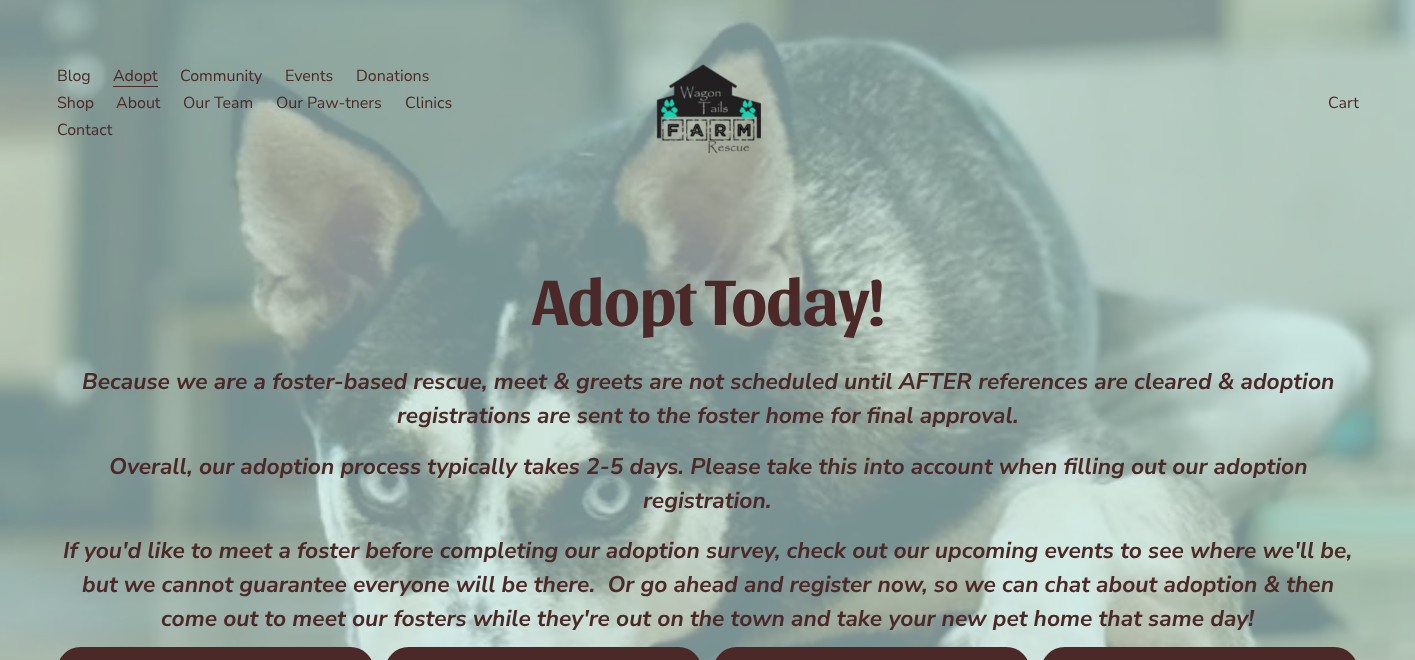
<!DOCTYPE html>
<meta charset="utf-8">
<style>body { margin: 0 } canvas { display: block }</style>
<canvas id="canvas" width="1415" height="660"></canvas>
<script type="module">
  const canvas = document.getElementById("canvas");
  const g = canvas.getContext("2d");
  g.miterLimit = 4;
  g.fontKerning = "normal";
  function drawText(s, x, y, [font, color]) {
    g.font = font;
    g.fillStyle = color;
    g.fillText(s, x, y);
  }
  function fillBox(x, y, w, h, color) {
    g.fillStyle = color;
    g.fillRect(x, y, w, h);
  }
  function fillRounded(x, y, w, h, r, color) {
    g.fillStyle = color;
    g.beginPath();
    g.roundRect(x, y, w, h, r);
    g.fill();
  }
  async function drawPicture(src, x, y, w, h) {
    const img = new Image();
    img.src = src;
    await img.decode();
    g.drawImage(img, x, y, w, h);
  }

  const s1 = ["16px Nunito Sans", "#4C2929"];
  const s2 = ["bold 67px Sansita", "#4C2929"];
  const s3 = ["italic bold 22.8px Nunito Sans", "#4C2929"];

  fillBox(0, 0, 1415, 660, "#FFFFFF");
  await drawPicture("pic2.png", 0, 0, 1415, 660);
  drawText("Blog", 57, 81, s1);
  fillBox(113, 86, 45, 1, "#4C2929");
  drawText("Adopt", 113, 81, s1);
  drawText("Community", 180, 81, s1);
  drawText("Events", 285, 81, s1);
  drawText("Donations", 356, 81, s1);
  drawText("Shop", 57, 108, s1);
  drawText("About", 116, 108, s1);
  drawText("Our Team", 183, 108, s1);
  drawText("Our Paw-tners", 276, 108, s1);
  drawText("Clinics", 405, 108, s1);
  drawText("Contact", 57, 135, s1);
  await drawPicture("pic1.png", 656, 64, 105, 90);
  drawText("Cart", 1328, 108, s1);
  g.letterSpacing = "-1.3px";
  drawText("Adopt Today!", 532, 325, s2);
  g.letterSpacing = "0px";
  drawText("Because we are a foster-based rescue, meet & greets are not scheduled until AFTER references are cleared & adoption", 82, 389, s3);
  drawText("registrations are sent to the foster home for final approval.", 397, 423, s3);
  drawText("Overall, our adoption process typically takes 2-5 days. Please take this into account when filling out our adoption", 109, 474, s3);
  drawText("registration.", 643, 508, s3);
  drawText("If you'd like to meet a foster before completing our adoption survey, check out our upcoming events to see where we'll be,", 63, 558, s3);
  drawText("but we cannot guarantee everyone will be there.  Or go ahead and register now, so we can chat about adoption & then", 82, 592, s3);
  drawText("come out to meet our fosters while they're out on the town and take your new pet home that same day!", 161, 626, s3);
  fillRounded(57, 647, 317, 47, 33.5, "#4C2929");
  fillRounded(385, 647, 317, 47, 33.5, "#4C2929");
  fillRounded(713, 647, 317, 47, 33.5, "#4C2929");
  fillRounded(1041, 647, 317, 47, 33.5, "#4C2929");
</script>
